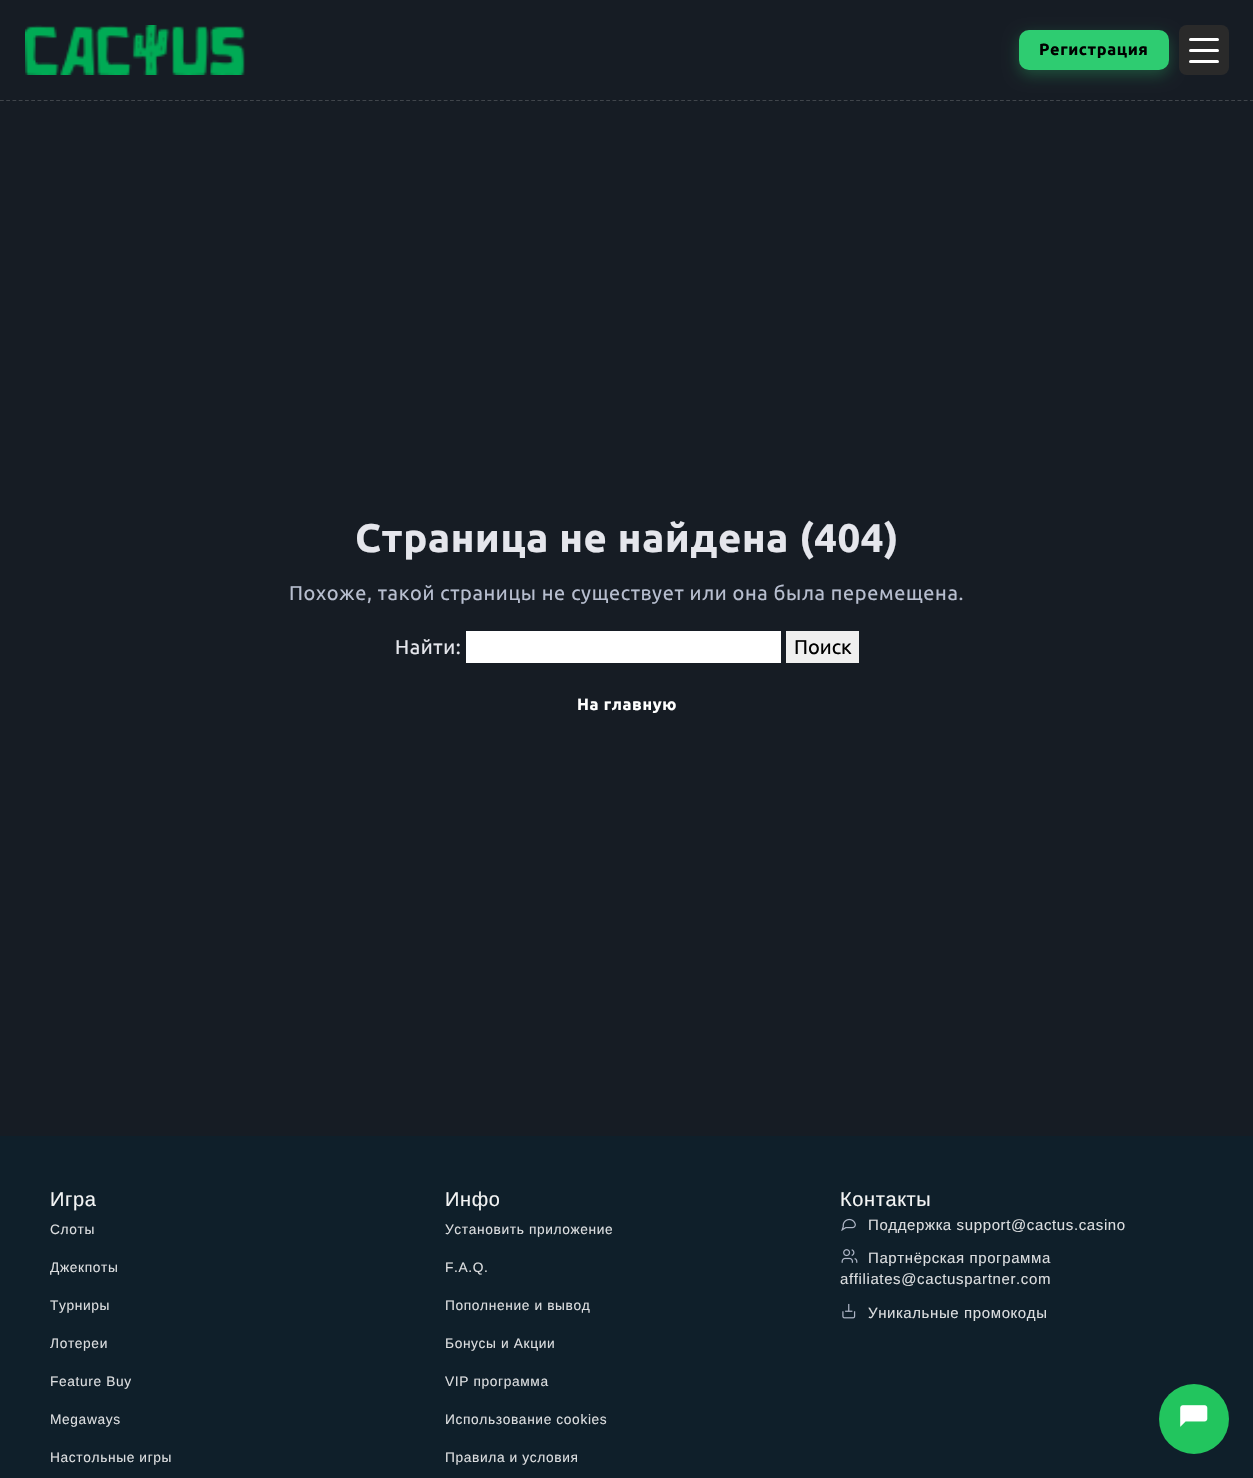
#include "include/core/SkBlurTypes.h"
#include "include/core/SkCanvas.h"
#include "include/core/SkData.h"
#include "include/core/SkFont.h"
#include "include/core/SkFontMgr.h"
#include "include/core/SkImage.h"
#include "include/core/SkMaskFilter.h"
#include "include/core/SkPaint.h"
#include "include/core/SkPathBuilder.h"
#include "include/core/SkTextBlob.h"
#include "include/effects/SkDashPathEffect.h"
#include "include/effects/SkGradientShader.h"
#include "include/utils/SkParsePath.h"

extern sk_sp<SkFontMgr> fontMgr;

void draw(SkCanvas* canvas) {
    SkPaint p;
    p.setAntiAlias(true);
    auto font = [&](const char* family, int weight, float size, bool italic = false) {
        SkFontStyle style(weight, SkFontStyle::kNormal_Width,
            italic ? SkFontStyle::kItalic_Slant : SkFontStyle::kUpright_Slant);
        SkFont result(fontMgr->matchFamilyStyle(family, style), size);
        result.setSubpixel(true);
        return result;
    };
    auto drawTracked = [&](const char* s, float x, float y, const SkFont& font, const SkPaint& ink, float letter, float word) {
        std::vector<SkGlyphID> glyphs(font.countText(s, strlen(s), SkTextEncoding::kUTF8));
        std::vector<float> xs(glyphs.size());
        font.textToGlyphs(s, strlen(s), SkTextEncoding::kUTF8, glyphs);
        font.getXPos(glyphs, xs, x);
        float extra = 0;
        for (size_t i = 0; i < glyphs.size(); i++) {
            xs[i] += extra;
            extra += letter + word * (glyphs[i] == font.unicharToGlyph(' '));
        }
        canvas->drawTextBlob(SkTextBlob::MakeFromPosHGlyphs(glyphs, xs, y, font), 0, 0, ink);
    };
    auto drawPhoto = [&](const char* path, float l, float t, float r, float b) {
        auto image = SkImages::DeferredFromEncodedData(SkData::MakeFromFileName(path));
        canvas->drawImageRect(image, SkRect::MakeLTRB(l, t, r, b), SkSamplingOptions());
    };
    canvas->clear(0xFF161C24);
    p.setStyle(SkPaint::kStroke_Style);
    p.setStrokeWidth(1.2f);
    p.setColor(0xFF40454B);
    p.setPathEffect(SkDashPathEffect::Make({{3.75f, 2.5f}}, 0));
    canvas->drawPath(SkPathBuilder().moveTo(0, 100.5f).lineTo(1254, 100.5f).detach(), p);
    p.setPathEffect(nullptr);
    drawPhoto("media/1.png", 25, 25, 245, 75);
    p.setStyle(SkPaint::kFill_Style);
    p.setColor(0x4D2ECC71);
    p.setMaskFilter(SkMaskFilter::MakeBlur(kNormal_SkBlurStyle, 7.5f));
    canvas->drawRoundRect(SkRect::MakeLTRB(1019, 35, 1169, 75), 10, 10, p);
    p.setMaskFilter(nullptr);
    p.setColor(0xFF2ECC71);
    canvas->drawRoundRect(SkRect::MakeLTRB(1019, 30, 1169, 70), 10, 10, p);
    auto font1 = font("Ubuntu", 700, 16.25f);
    p.setColor(0xFF000000);
    drawTracked("Регистрация", 1039, 55, font1, p, 0.62f, 0);
    p.setColor(0xFF2A2A2A);
    canvas->drawRoundRect(SkRect::MakeLTRB(1179, 25, 1229, 75), 8, 8, p);
    p.setColor(0xFFFFFFFF);
    canvas->drawRoundRect(SkRect::MakeLTRB(1189, 38, 1219, 41), 1.5f, 1.5f, p);
    canvas->drawRoundRect(SkRect::MakeLTRB(1189, 49, 1219, 52), 1.5f, 1.5f, p);
    canvas->drawRoundRect(SkRect::MakeLTRB(1189, 60, 1219, 63), 1.5f, 1.5f, p);
    auto font2 = font("Ubuntu", 700, 40);
    p.setColor(0xFFE5E6EC);
    drawTracked("Страница не найдена (404)", 355, 552, font2, p, 0.62f, 0);
    auto font3 = font("Ubuntu", 400, 20);
    p.setColor(0xFFB7BECF);
    drawTracked("Похоже, такой страницы не существует или она была перемещена.", 289, 600, font3, p, 0.62f, 0);
    p.setColor(0xFFE5E6EC);
    drawTracked("Найти:", 395, 654, font3, p, 0.62f, 0);
    p.setColor(0xFFFFFFFF);
    canvas->drawRect(SkRect::MakeLTRB(466, 631, 781, 663), p);
    p.setColor(0xFFEFEFEF);
    canvas->drawRect(SkRect::MakeLTRB(786, 631, 859, 663), p);
    p.setColor(0xFF000000);
    canvas->drawString("Поиск", 794, 654, font3, p);
    p.setColor(0xFFFFFFFF);
    drawTracked("На главную", 577, 710, font1, p, 0.62f, 0);
    p.setColor(0xFF0F1F2A);
    canvas->drawRect(SkRect::MakeLTRB(0, 1136, 1253, 1478), p);
    auto font4 = font("Liberation Sans", 400, 20);
    p.setColor(0xFFF3F4F4);
    drawTracked("Игра", 50, 1206, font4, p, 0.62f, 0);
    auto font5 = font("Liberation Sans", 400, 13.75f);
    p.setColor(0xFFDBDDDF);
    {
        const struct { const char* s; float x, y; } items[] = {
            {"Слоты", 50, 1234},
            {"Джекпоты", 50, 1272},
            {"Турниры", 50, 1310},
            {"Лотереи", 50, 1348},
            {"Feature Buy", 50, 1386},
            {"Megaways", 50, 1424},
            {"Настольные игры", 50, 1462},
        };
        for (auto [s, x, y] : items) {
            drawTracked(s, x, y, font5, p, 0.62f, 0);
        }
    }
    p.setColor(0xFFF3F4F4);
    drawTracked("Инфо", 445, 1206, font4, p, 0.62f, 0);
    p.setColor(0xFFDBDDDF);
    {
        const struct { const char* s; float x, y; } items[] = {
            {"Установить приложение", 445, 1234},
            {"F.A.Q.", 445, 1272},
            {"Пополнение и вывод", 445, 1310},
            {"Бонусы и Акции", 445, 1348},
            {"VIP программа", 445, 1386},
            {"Использование cookies", 445, 1424},
            {"Правила и условия", 445, 1462},
        };
        for (auto [s, x, y] : items) {
            drawTracked(s, x, y, font5, p, 0.62f, 0);
        }
    }
    p.setColor(0xFFF3F4F4);
    drawTracked("Контакты", 840, 1206, font4, p, 0.62f, 0);
    drawPhoto("media/2.png", 841, 1218, 856, 1231);
    auto font6 = font("Liberation Sans", 400, 15);
    p.setColor(0xFFDBDDDF);
    drawTracked("Поддержка support@cactus.casino", 868, 1230, font6, p, 0.62f, 0);
    drawPhoto("media/3.png", 841, 1249, 858, 1263);
    drawTracked("Партнёрская программа", 868, 1263, font6, p, 0.62f, 0);
    drawTracked("affiliates@cactuspartner.com", 840, 1284, font6, p, 0.62f, 0);
    drawPhoto("media/4.png", 842, 1303, 856, 1319);
    drawTracked("Уникальные промокоды", 868, 1318, font6, p, 0.62f, 0);
    p.setColor(0xFF22C55E);
    canvas->drawCircle(1194, 1419, 35, p);
    drawPhoto("media/5.png", 1180, 1405, 1208, 1427);
}
